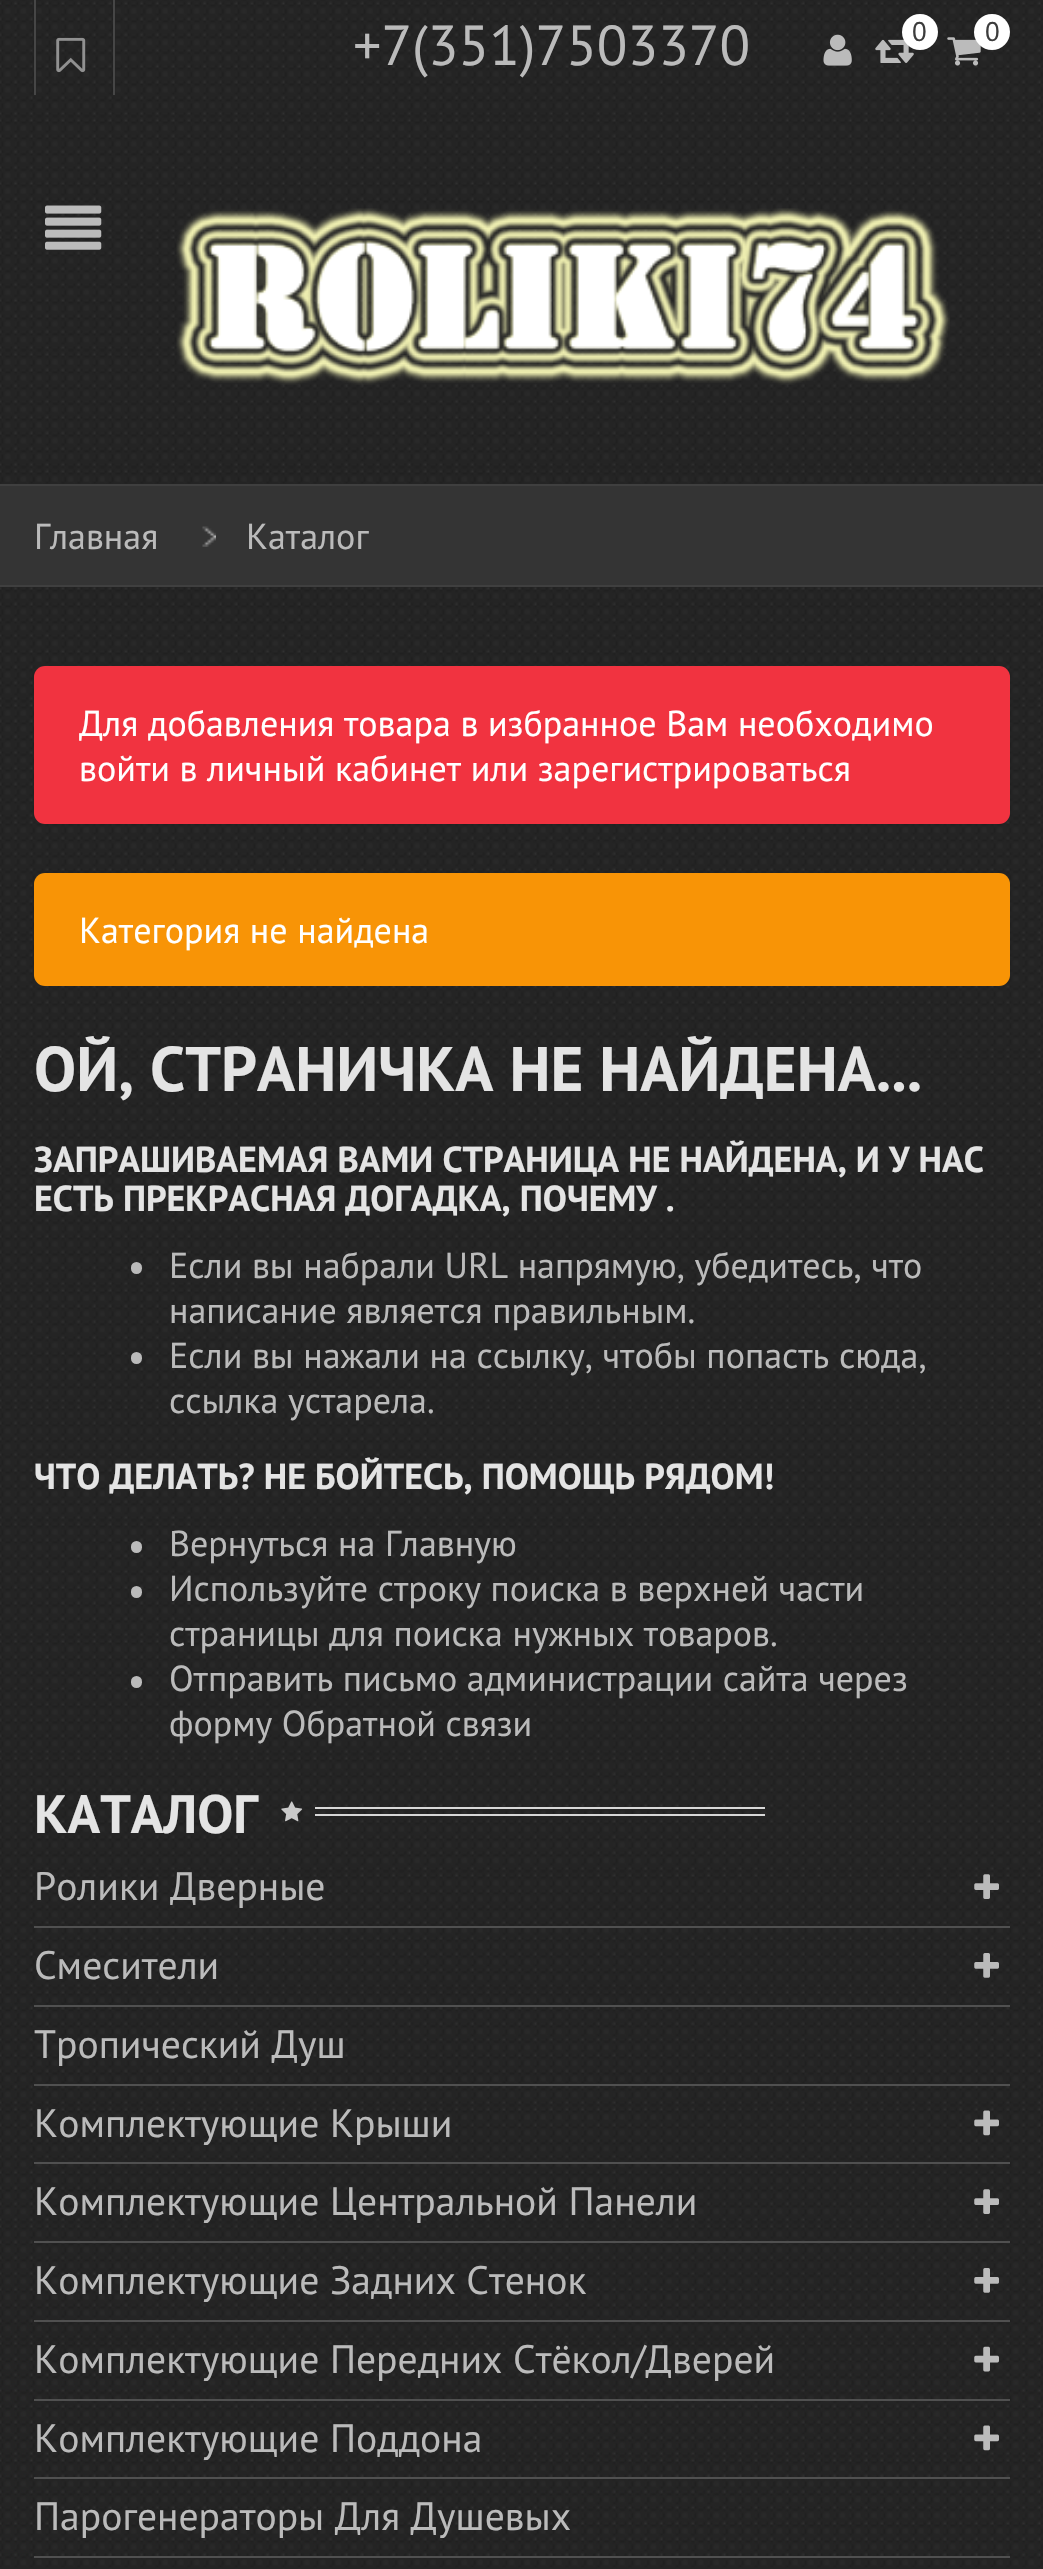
#include "include/core/SkBlurTypes.h"
#include "include/core/SkCanvas.h"
#include "include/core/SkData.h"
#include "include/core/SkFont.h"
#include "include/core/SkFontMgr.h"
#include "include/core/SkImage.h"
#include "include/core/SkMaskFilter.h"
#include "include/core/SkPaint.h"
#include "include/core/SkPathBuilder.h"
#include "include/core/SkTextBlob.h"
#include "include/effects/SkDashPathEffect.h"
#include "include/effects/SkGradientShader.h"
#include "include/utils/SkParsePath.h"

extern sk_sp<SkFontMgr> fontMgr;

void draw(SkCanvas* canvas) {
    SkPaint p;
    p.setAntiAlias(true);
    auto font = [&](const char* family, int weight, float size, bool italic = false) {
        SkFontStyle style(weight, SkFontStyle::kNormal_Width,
            italic ? SkFontStyle::kItalic_Slant : SkFontStyle::kUpright_Slant);
        SkFont result(fontMgr->matchFamilyStyle(family, style), size);
        result.setSubpixel(true);
        return result;
    };
    auto drawPhoto = [&](const char* path, float l, float t, float r, float b) {
        auto image = SkImages::DeferredFromEncodedData(SkData::MakeFromFileName(path));
        canvas->drawImageRect(image, SkRect::MakeLTRB(l, t, r, b), SkSamplingOptions());
    };
    canvas->clear(0xFFFFFFFF);
    drawPhoto("media/1.png", 0, 0, 1043, 2569);
    p.setColor(0xFF464646);
    canvas->drawRect(SkRect::MakeLTRB(113, 0, 115, 95), p);
    canvas->drawRect(SkRect::MakeLTRB(34, 0, 36, 95), p);
    drawPhoto("media/2.png", 56, 37, 86, 73);
    auto font1 = font("PT Sans", 400, 56.25f);
    p.setColor(0xFFBBBBBB);
    canvas->drawString("+7(351)7503370", 353, 65, font1, p);
    drawPhoto("media/3.png", 875, 39, 914, 63);
    p.setColor(0xFFFFFFFF);
    canvas->drawCircle(920, 32, 18, p);
    auto font2 = font("PT Sans", 400, 27);
    p.setColor(0xFF3C3C3C);
    canvas->drawString("0", 912, 41, font2, p);
    drawPhoto("media/4.png", 947, 37, 981, 66);
    p.setColor(0xFFFFFFFF);
    canvas->drawCircle(992, 32, 18, p);
    p.setColor(0xFF3C3C3C);
    canvas->drawString("0", 985, 41, font2, p);
    drawPhoto("media/5.png", 823, 34, 852, 66);
    drawPhoto("media/6.png", 45, 205, 102, 250);
    drawPhoto("media/7.png", 176, 208, 950, 385);
    {
        const struct { float l, t, r, b; SkColor color; } items[] = {
            {0, 486, 1043, 585, 0xFF343434},
            {0, 484, 1043, 486, 0xFF3F3F3F},
            {0, 585, 1043, 587, 0xFF3F3F3F},
        };
        for (auto [l, t, r, b, color] : items) {
            p.setColor(color);
            canvas->drawRect(SkRect::MakeLTRB(l, t, r, b), p);
        }
    }
    auto font3 = font("PT Sans", 400, 36);
    p.setColor(0xFFBBBBBB);
    canvas->drawString("Главная", 34, 549, font3, p);
    drawPhoto("media/8.png", 202, 526, 216, 547);
    canvas->drawString("Каталог", 246, 549, font3, p);
    p.setColor(0xFFF13340);
    canvas->drawRoundRect(SkRect::MakeLTRB(34, 666, 1010, 824), 11, 11, p);
    p.setColor(0xFFFFFFFF);
    canvas->drawString("Для добавления товара в избранное Вам необходимо", 79, 736, font3, p);
    canvas->drawString("войти в личный кабинет или зарегистрироваться", 79, 781, font3, p);
    p.setColor(0xFFF89406);
    canvas->drawRoundRect(SkRect::MakeLTRB(34, 873, 1010, 986), 11, 11, p);
    p.setColor(0xFFFFFFFF);
    canvas->drawString("Категория не найдена", 79, 943, font3, p);
    auto font4 = font("PT Sans", 700, 63);
    p.setColor(0xFFE4E4E4);
    canvas->drawString("ОЙ, СТРАНИЧКА НЕ НАЙДЕНА...", 34, 1091, font4, p);
    auto font5 = font("PT Sans", 700, 36);
    canvas->drawString("ЗАПРАШИВАЕМАЯ ВАМИ СТРАНИЦА НЕ НАЙДЕНА, И У НАС", 34, 1172, font5, p);
    canvas->drawString("ЕСТЬ ПРЕКРАСНАЯ ДОГАДКА, ПОЧЕМУ .", 34, 1211, font5, p);
    p.setColor(0xFFBBBBBB);
    canvas->drawRoundRect(SkRect::MakeLTRB(131, 1262, 142, 1274), 5.5f, 5.5f, p);
    canvas->drawString("Если вы набрали URL напрямую, убедитесь, что", 169, 1278, font3, p);
    canvas->drawString("написание является правильным.", 169, 1323, font3, p);
    canvas->drawRoundRect(SkRect::MakeLTRB(131, 1352, 142, 1364), 5.5f, 5.5f, p);
    canvas->drawString("Если вы нажали на ссылку, чтобы попасть сюда,", 169, 1368, font3, p);
    canvas->drawString("ссылка устарела.", 169, 1413, font3, p);
    p.setColor(0xFFE4E4E4);
    canvas->drawString("ЧТО ДЕЛАТЬ? НЕ БОЙТЕСЬ, ПОМОЩЬ РЯДОМ!", 34, 1489, font5, p);
    p.setColor(0xFFBBBBBB);
    canvas->drawRoundRect(SkRect::MakeLTRB(131, 1541, 142, 1553), 5.5f, 5.5f, p);
    canvas->drawString("Вернуться на Главную", 169, 1556, font3, p);
    canvas->drawRoundRect(SkRect::MakeLTRB(131, 1586, 142, 1598), 5.5f, 5.5f, p);
    canvas->drawString("Используйте строку поиска в верхней части", 169, 1601, font3, p);
    canvas->drawString("страницы для поиска нужных товаров.", 169, 1646, font3, p);
    canvas->drawRoundRect(SkRect::MakeLTRB(131, 1676, 142, 1688), 5.5f, 5.5f, p);
    canvas->drawString("Отправить письмо админиcтрации сайта через", 169, 1691, font3, p);
    canvas->drawString("форму Обратной связи", 169, 1736, font3, p);
    auto font6 = font("PT Sans", 700, 54);
    p.setColor(0xFFE4E4E4);
    canvas->drawString("КАТАЛОГ", 34, 1833, font6, p);
    drawPhoto("media/9.png", 281, 1801, 303, 1822);
    {
        const struct { float l, t, r, b; SkColor color; } items[] = {
            {315, 1807, 765, 1809, 0xFFD7D7D7},
            {315, 1814, 765, 1816, 0xFFD7D7D7},
            {34, 1926, 1010, 1928, 0xFF505050},
        };
        for (auto [l, t, r, b, color] : items) {
            p.setColor(color);
            canvas->drawRect(SkRect::MakeLTRB(l, t, r, b), p);
        }
    }
    auto font7 = font("PT Sans", 400, 39.6f);
    p.setColor(0xFFBBBBBB);
    canvas->drawString("Ролики Дверные", 34, 1900, font7, p);
    drawPhoto("media/10.png", 974, 1874, 999, 1899);
    p.setColor(0xFF505050);
    canvas->drawRect(SkRect::MakeLTRB(34, 2005, 1010, 2007), p);
    p.setColor(0xFFBBBBBB);
    canvas->drawString("Смесители", 34, 1979, font7, p);
    drawPhoto("media/11.png", 974, 1953, 999, 1978);
    p.setColor(0xFF505050);
    canvas->drawRect(SkRect::MakeLTRB(34, 2084, 1010, 2086), p);
    p.setColor(0xFFBBBBBB);
    canvas->drawString("Тропический Душ", 34, 2058, font7, p);
    p.setColor(0xFF505050);
    canvas->drawRect(SkRect::MakeLTRB(34, 2162, 1010, 2164), p);
    p.setColor(0xFFBBBBBB);
    canvas->drawString("Комплектующие Крыши", 34, 2137, font7, p);
    drawPhoto("media/12.png", 974, 2110, 999, 2136);
    p.setColor(0xFF505050);
    canvas->drawRect(SkRect::MakeLTRB(34, 2241, 1010, 2243), p);
    p.setColor(0xFFBBBBBB);
    canvas->drawString("Комплектующие Центральной Панели", 34, 2215, font7, p);
    drawPhoto("media/13.png", 974, 2189, 999, 2214);
    p.setColor(0xFF505050);
    canvas->drawRect(SkRect::MakeLTRB(34, 2320, 1010, 2322), p);
    p.setColor(0xFFBBBBBB);
    canvas->drawString("Комплектующие Задних Стенок", 34, 2294, font7, p);
    drawPhoto("media/14.png", 974, 2268, 999, 2293);
    p.setColor(0xFF505050);
    canvas->drawRect(SkRect::MakeLTRB(34, 2399, 1010, 2401), p);
    p.setColor(0xFFBBBBBB);
    canvas->drawString("Комплектующие Передних Стёкол/Дверей", 34, 2373, font7, p);
    drawPhoto("media/15.png", 974, 2346, 999, 2372);
    p.setColor(0xFF505050);
    canvas->drawRect(SkRect::MakeLTRB(34, 2477, 1010, 2479), p);
    p.setColor(0xFFBBBBBB);
    canvas->drawString("Комплектующие Поддона", 34, 2452, font7, p);
    drawPhoto("media/16.png", 974, 2425, 999, 2451);
    p.setColor(0xFF505050);
    canvas->drawRect(SkRect::MakeLTRB(34, 2556, 1010, 2558), p);
    p.setColor(0xFFBBBBBB);
    canvas->drawString("Парогенераторы Для Душевых", 34, 2530, font7, p);
}
